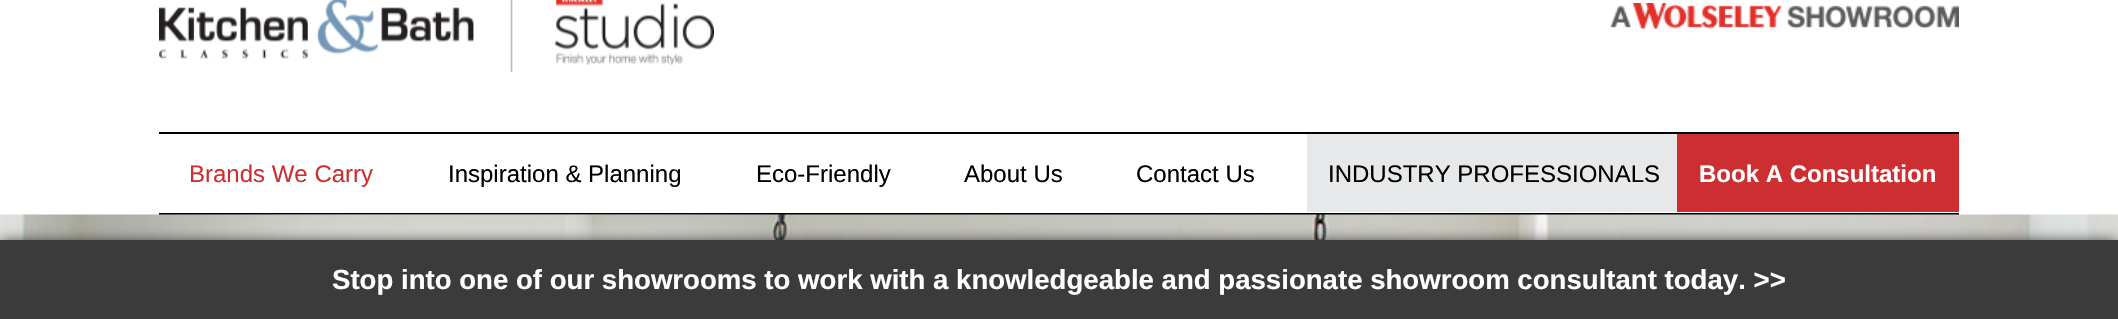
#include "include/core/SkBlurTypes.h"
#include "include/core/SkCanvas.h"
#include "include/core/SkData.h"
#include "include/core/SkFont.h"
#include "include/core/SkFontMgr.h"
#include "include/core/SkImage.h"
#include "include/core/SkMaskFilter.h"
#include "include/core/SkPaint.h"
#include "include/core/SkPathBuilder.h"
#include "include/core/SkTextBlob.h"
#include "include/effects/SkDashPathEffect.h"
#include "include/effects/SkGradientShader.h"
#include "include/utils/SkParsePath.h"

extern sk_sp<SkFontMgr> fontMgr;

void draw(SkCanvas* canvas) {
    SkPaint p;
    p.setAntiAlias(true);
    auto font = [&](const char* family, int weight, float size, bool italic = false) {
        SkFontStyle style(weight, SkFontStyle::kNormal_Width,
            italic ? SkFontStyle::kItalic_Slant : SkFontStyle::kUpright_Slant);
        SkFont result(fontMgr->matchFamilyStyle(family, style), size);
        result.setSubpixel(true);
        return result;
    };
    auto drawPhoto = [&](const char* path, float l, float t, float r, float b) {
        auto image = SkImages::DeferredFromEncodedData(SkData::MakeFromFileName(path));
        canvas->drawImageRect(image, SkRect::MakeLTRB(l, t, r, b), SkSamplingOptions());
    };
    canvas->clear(0xFFFFFFFF);
    drawPhoto("media/1.png", 159, 0, 714, 72);
    drawPhoto("media/2.png", 1610, 3, 1959, 29);
    p.setColor(0xFF000000);
    canvas->drawRect(SkRect::MakeLTRB(159, 132, 1959, 134), p);
    canvas->drawRect(SkRect::MakeLTRB(159, 213, 1959, 215), p);
    auto font1 = font("Liberation Sans", 400, 24);
    p.setColor(0xFFCD2E31);
    canvas->drawString("Brands We Carry", 189, 182, font1, p);
    p.setColor(0xFF000000);
    canvas->drawString("Inspiration & Planning", 448, 182, font1, p);
    p.setColor(0x66FFFFFF);
    canvas->drawPath(SkPathBuilder().moveTo(667.5f, 163.5f).lineTo(682.5f, 163.5f).lineTo(675, 171).close().detach(), p);
    p.setColor(0xFF000000);
    {
        const struct { const char* s; float x, y; } items[] = {
            {"Eco-Friendly", 756, 182},
            {"About Us", 964, 182},
            {"Contact Us", 1136, 182},
        };
        for (auto [s, x, y] : items) {
            canvas->drawString(s, x, y, font1, p);
        }
    }
    p.setColor(0x66FFFFFF);
    canvas->drawPath(SkPathBuilder().moveTo(1242, 163.5f).lineTo(1257, 163.5f).lineTo(1249.5f, 171).close().detach(), p);
    p.setColor(0xFFE7E8E9);
    canvas->drawRect(SkRect::MakeLTRB(1307, 134, 1677, 212), p);
    p.setColor(0xFF000000);
    canvas->drawString("INDUSTRY PROFESSIONALS", 1328, 182, font1, p);
    p.setColor(0xFFCD2E31);
    canvas->drawRect(SkRect::MakeLTRB(1677, 134, 1959, 212), p);
    auto font2 = font("Liberation Sans", 700, 24);
    p.setColor(0xFFFFFFFF);
    canvas->drawString("Book A Consultation", 1699, 182, font2, p);
    drawPhoto("media/3.png", 0, 214, 2118, 240);
    drawPhoto("media/4.png", 153, 214, 806, 240);
    p.setColor(0xFF262626);
    p.setMaskFilter(SkMaskFilter::MakeBlur(kNormal_SkBlurStyle, 7));
    canvas->drawRect(SkRect::MakeLTRB(0, 242, 2118, 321), p);
    p.setMaskFilter(nullptr);
    p.setColor(0xFF3B3B3B);
    canvas->drawRect(SkRect::MakeLTRB(0, 240, 2118, 319), p);
    auto font3 = font("Liberation Sans", 700, 27.6f);
    p.setColor(0xFFFFFFFF);
    canvas->drawString("Stop into one of our showrooms to work with a knowledgeable and passionate showroom consultant today. >>", 332, 289, font3, p);
}
